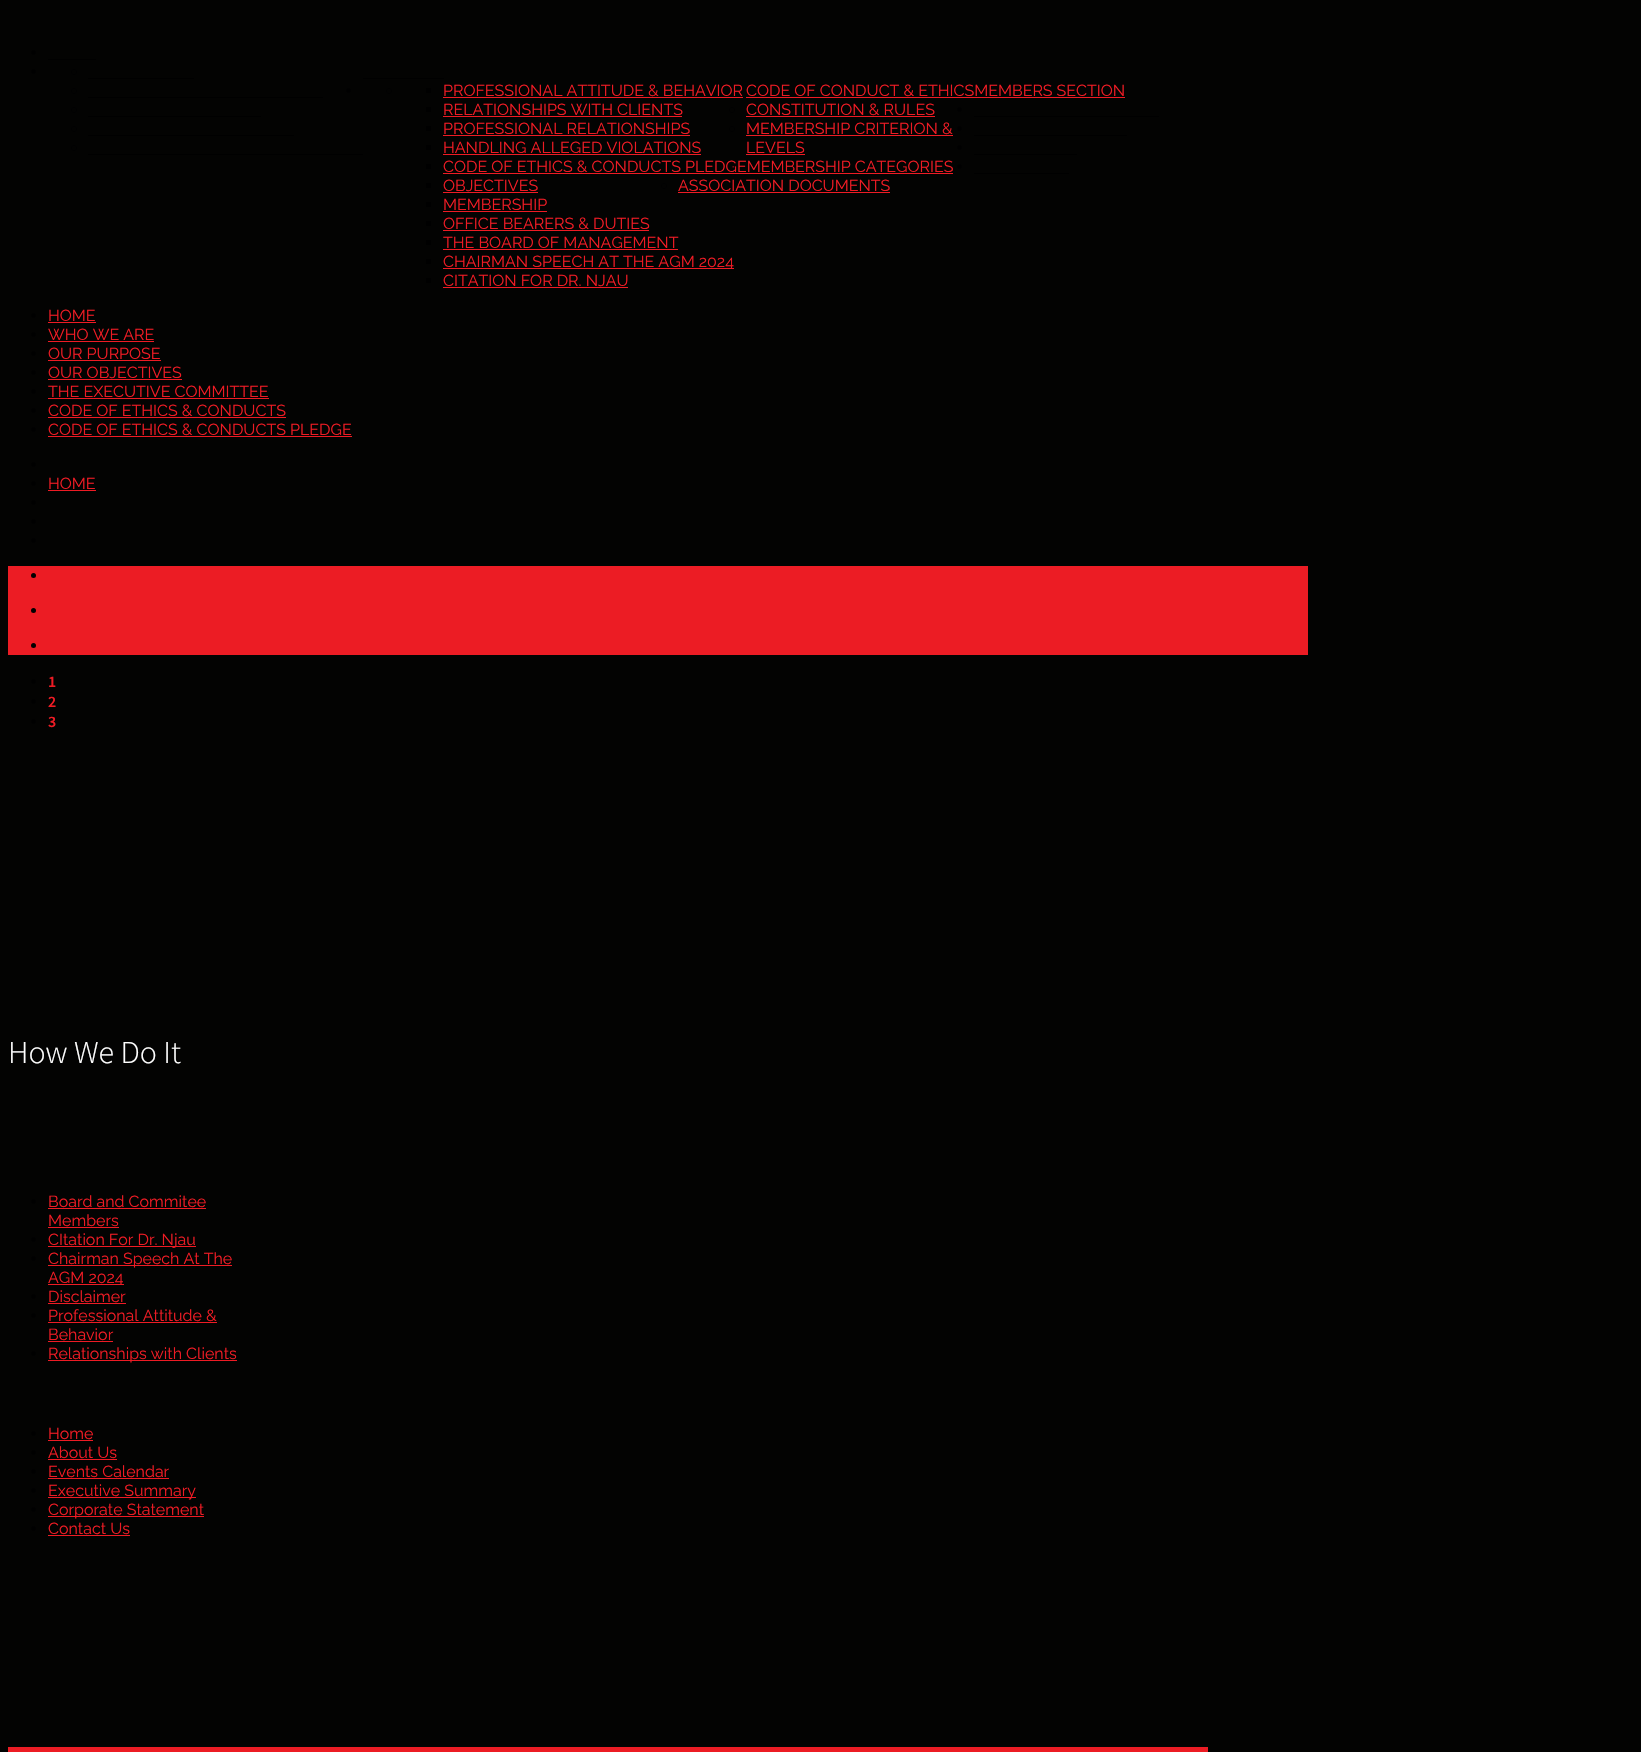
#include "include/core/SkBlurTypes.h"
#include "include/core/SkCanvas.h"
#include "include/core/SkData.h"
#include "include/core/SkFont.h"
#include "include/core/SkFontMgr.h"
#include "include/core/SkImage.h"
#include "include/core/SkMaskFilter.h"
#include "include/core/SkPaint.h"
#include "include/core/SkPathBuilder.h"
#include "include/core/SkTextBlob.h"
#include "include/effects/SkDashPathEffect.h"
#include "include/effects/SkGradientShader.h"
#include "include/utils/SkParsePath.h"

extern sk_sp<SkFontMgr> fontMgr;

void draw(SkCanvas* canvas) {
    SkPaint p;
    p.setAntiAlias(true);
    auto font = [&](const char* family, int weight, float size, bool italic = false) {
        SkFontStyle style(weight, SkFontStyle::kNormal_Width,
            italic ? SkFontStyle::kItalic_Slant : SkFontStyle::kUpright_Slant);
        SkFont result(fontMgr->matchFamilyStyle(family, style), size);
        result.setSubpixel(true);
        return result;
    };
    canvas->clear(0xFF030302);
    p.setColor(0xFF000000);
    canvas->drawCircle(33.5f, 52.5f, 2.5f, p);
    canvas->drawRect(SkRect::MakeLTRB(48, 59, 96, 60), p);
    canvas->drawCircle(33.5f, 71.5f, 2.5f, p);
    p.setStyle(SkPaint::kStroke_Style);
    p.setStrokeWidth(1);
    canvas->drawCircle(74, 72, 2.5f, p);
    p.setStyle(SkPaint::kFill_Style);
    canvas->drawRect(SkRect::MakeLTRB(88, 78, 194, 79), p);
    p.setStyle(SkPaint::kStroke_Style);
    canvas->drawCircle(74, 91, 2.5f, p);
    p.setStyle(SkPaint::kFill_Style);
    canvas->drawRect(SkRect::MakeLTRB(88, 97, 323, 98), p);
    p.setStyle(SkPaint::kStroke_Style);
    canvas->drawCircle(74, 110, 2.5f, p);
    p.setStyle(SkPaint::kFill_Style);
    canvas->drawRect(SkRect::MakeLTRB(88, 116, 261, 117), p);
    p.setStyle(SkPaint::kStroke_Style);
    canvas->drawCircle(74, 129, 2.5f, p);
    p.setStyle(SkPaint::kFill_Style);
    canvas->drawRect(SkRect::MakeLTRB(88, 135, 294, 136), p);
    p.setStyle(SkPaint::kStroke_Style);
    canvas->drawCircle(74, 148, 2.5f, p);
    p.setStyle(SkPaint::kFill_Style);
    canvas->drawRect(SkRect::MakeLTRB(88, 154, 363, 155), p);
    canvas->drawRect(SkRect::MakeLTRB(363, 78, 444, 79), p);
    canvas->drawCircle(348.5f, 90.5f, 2.5f, p);
    canvas->drawRect(SkRect::MakeLTRB(426, 88, 431, 93), p);
    auto font1 = font("Raleway", 400, 16);
    p.setColor(0xFFEE1B24);
    canvas->drawString("PROFESSIONAL ATTITUDE & BEHAVIOR", 443, 96, font1, p);
    canvas->drawRect(SkRect::MakeLTRB(443, 97, 743, 98), p);
    p.setColor(0xFF000000);
    canvas->drawRect(SkRect::MakeLTRB(426, 107, 431, 112), p);
    p.setColor(0xFFEE1B24);
    canvas->drawString("RELATIONSHIPS WITH CLIENTS", 443, 115, font1, p);
    canvas->drawRect(SkRect::MakeLTRB(443, 116, 682, 117), p);
    p.setColor(0xFF000000);
    canvas->drawRect(SkRect::MakeLTRB(426, 126, 431, 131), p);
    p.setColor(0xFFEE1B24);
    canvas->drawString("PROFESSIONAL RELATIONSHIPS", 443, 134, font1, p);
    canvas->drawRect(SkRect::MakeLTRB(443, 135, 690, 136), p);
    p.setColor(0xFF000000);
    canvas->drawRect(SkRect::MakeLTRB(426, 145, 431, 150), p);
    p.setColor(0xFFEE1B24);
    canvas->drawString("HANDLING ALLEGED VIOLATIONS", 443, 153, font1, p);
    canvas->drawRect(SkRect::MakeLTRB(443, 154, 701, 155), p);
    p.setColor(0xFF000000);
    canvas->drawRect(SkRect::MakeLTRB(426, 164, 431, 169), p);
    p.setColor(0xFFEE1B24);
    canvas->drawString("CODE OF ETHICS & CONDUCTS PLEDGEMEMBERSHIP CATEGORIES", 443, 172, font1, p);
    canvas->drawRect(SkRect::MakeLTRB(443, 173, 953, 174), p);
    p.setStyle(SkPaint::kStroke_Style);
    p.setColor(0xFF000000);
    canvas->drawCircle(389, 91, 2.5f, p);
    p.setStyle(SkPaint::kFill_Style);
    p.setColor(0xFFEE1B24);
    canvas->drawString("CODE OF CONDUCT & ETHICSMEMBERS SECTION", 746, 96, font1, p);
    canvas->drawRect(SkRect::MakeLTRB(746, 97, 1125, 98), p);
    p.setStyle(SkPaint::kStroke_Style);
    p.setColor(0xFF000000);
    canvas->drawCircle(732, 110, 2.5f, p);
    p.setStyle(SkPaint::kFill_Style);
    p.setColor(0xFFEE1B24);
    canvas->drawString("CONSTITUTION & RULES", 746, 115, font1, p);
    canvas->drawRect(SkRect::MakeLTRB(746, 116, 935, 117), p);
    p.setColor(0xFF000000);
    canvas->drawRect(SkRect::MakeLTRB(426, 183, 431, 188), p);
    p.setColor(0xFFEE1B24);
    canvas->drawString("OBJECTIVES", 443, 191, font1, p);
    canvas->drawRect(SkRect::MakeLTRB(443, 192, 538, 193), p);
    p.setColor(0xFF000000);
    canvas->drawRect(SkRect::MakeLTRB(426, 202, 431, 207), p);
    p.setColor(0xFFEE1B24);
    canvas->drawString("MEMBERSHIP", 443, 210, font1, p);
    canvas->drawRect(SkRect::MakeLTRB(443, 211, 547, 212), p);
    p.setColor(0xFF000000);
    canvas->drawRect(SkRect::MakeLTRB(426, 221, 431, 226), p);
    p.setColor(0xFFEE1B24);
    canvas->drawString("OFFICE BEARERS & DUTIES", 443, 229, font1, p);
    canvas->drawRect(SkRect::MakeLTRB(443, 230, 649, 231), p);
    p.setColor(0xFF000000);
    canvas->drawRect(SkRect::MakeLTRB(426, 240, 431, 245), p);
    p.setColor(0xFFEE1B24);
    canvas->drawString("THE BOARD OF MANAGEMENT", 443, 248, font1, p);
    canvas->drawRect(SkRect::MakeLTRB(443, 249, 678, 250), p);
    p.setStyle(SkPaint::kStroke_Style);
    p.setColor(0xFF000000);
    canvas->drawCircle(732, 129, 2.5f, p);
    p.setStyle(SkPaint::kFill_Style);
    p.setColor(0xFFEE1B24);
    canvas->drawString("MEMBERSHIP CRITERION &", 746, 134, font1, p);
    canvas->drawRect(SkRect::MakeLTRB(746, 135, 953, 136), p);
    canvas->drawString("LEVELS", 746, 153, font1, p);
    canvas->drawRect(SkRect::MakeLTRB(746, 154, 805, 155), p);
    p.setStyle(SkPaint::kStroke_Style);
    p.setColor(0xFF000000);
    canvas->drawCircle(732, 167, 2.5f, p);
    canvas->drawCircle(664, 186, 2.5f, p);
    p.setStyle(SkPaint::kFill_Style);
    p.setColor(0xFFEE1B24);
    canvas->drawString("ASSOCIATION DOCUMENTS", 678, 191, font1, p);
    {
        const struct { float l, t, r, b; SkColor color; } items[] = {
            {678, 192, 890, 193, 0xFFEE1B24},
            {426, 259, 431, 264, 0xFF000000},
            {443, 268, 734, 269, 0xFFEE1B24},
        };
        for (auto [l, t, r, b, color] : items) {
            p.setColor(color);
            canvas->drawRect(SkRect::MakeLTRB(l, t, r, b), p);
        }
    }
    canvas->drawString("CHAIRMAN SPEECH AT THE AGM 2024", 443, 267, font1, p);
    p.setColor(0xFF000000);
    canvas->drawRect(SkRect::MakeLTRB(426, 278, 431, 283), p);
    p.setColor(0xFFEE1B24);
    canvas->drawString("CITATION FOR DR. NJAU", 443, 286, font1, p);
    canvas->drawRect(SkRect::MakeLTRB(443, 287, 628, 288), p);
    p.setColor(0xFF000000);
    canvas->drawCircle(959.5f, 109.5f, 2.5f, p);
    canvas->drawRect(SkRect::MakeLTRB(974, 116, 1159, 117), p);
    canvas->drawCircle(959.5f, 128.5f, 2.5f, p);
    canvas->drawRect(SkRect::MakeLTRB(974, 135, 1127, 136), p);
    canvas->drawCircle(959.5f, 147.5f, 2.5f, p);
    canvas->drawRect(SkRect::MakeLTRB(974, 154, 1077, 155), p);
    canvas->drawCircle(959.5f, 166.5f, 2.5f, p);
    canvas->drawRect(SkRect::MakeLTRB(974, 173, 1069, 174), p);
    canvas->drawCircle(33.5f, 315.5f, 2.5f, p);
    p.setColor(0xFFEE1B24);
    canvas->drawString("HOME", 48, 321, font1, p);
    canvas->drawRect(SkRect::MakeLTRB(48, 322, 96, 323), p);
    p.setColor(0xFF000000);
    canvas->drawCircle(33.5f, 334.5f, 2.5f, p);
    p.setColor(0xFFEE1B24);
    canvas->drawString("WHO WE ARE", 48, 340, font1, p);
    canvas->drawRect(SkRect::MakeLTRB(48, 341, 154, 342), p);
    p.setColor(0xFF000000);
    canvas->drawCircle(33.5f, 353.5f, 2.5f, p);
    p.setColor(0xFFEE1B24);
    canvas->drawString("OUR PURPOSE", 48, 359, font1, p);
    canvas->drawRect(SkRect::MakeLTRB(48, 360, 161, 361), p);
    p.setColor(0xFF000000);
    canvas->drawCircle(33.5f, 372.5f, 2.5f, p);
    p.setColor(0xFFEE1B24);
    canvas->drawString("OUR OBJECTIVES", 48, 378, font1, p);
    p.setColor(0xFFEC1C24);
    canvas->drawRect(SkRect::MakeLTRB(48, 379, 182, 380), p);
    p.setColor(0xFF000000);
    canvas->drawCircle(33.5f, 391.5f, 2.5f, p);
    p.setColor(0xFFEE1B24);
    canvas->drawString("THE EXECUTIVE COMMITTEE", 48, 397, font1, p);
    canvas->drawRect(SkRect::MakeLTRB(48, 398, 269, 399), p);
    p.setColor(0xFF000000);
    canvas->drawCircle(33.5f, 410.5f, 2.5f, p);
    p.setColor(0xFFEE1B24);
    canvas->drawString("CODE OF ETHICS & CONDUCTS", 48, 416, font1, p);
    canvas->drawRect(SkRect::MakeLTRB(48, 417, 286, 418), p);
    p.setColor(0xFF000000);
    canvas->drawCircle(33.5f, 429.5f, 2.5f, p);
    p.setColor(0xFFEE1B24);
    canvas->drawString("CODE OF ETHICS & CONDUCTS PLEDGE", 48, 435, font1, p);
    canvas->drawRect(SkRect::MakeLTRB(48, 436, 352, 437), p);
    p.setColor(0xFF000000);
    canvas->drawCircle(33.5f, 464.5f, 2.5f, p);
    canvas->drawCircle(33.5f, 483.5f, 2.5f, p);
    p.setColor(0xFFEE1B24);
    canvas->drawString("HOME", 48, 489, font1, p);
    canvas->drawRect(SkRect::MakeLTRB(48, 490, 96, 491), p);
    p.setColor(0xFF000000);
    canvas->drawCircle(33.5f, 502.5f, 2.5f, p);
    canvas->drawCircle(33.5f, 521.5f, 2.5f, p);
    canvas->drawCircle(33.5f, 540.5f, 2.5f, p);
    p.setColor(0xFFEC1C24);
    canvas->drawRect(SkRect::MakeLTRB(8, 566, 1308, 655), p);
    p.setColor(0xFF000000);
    canvas->drawCircle(33.5f, 575.5f, 2.5f, p);
    canvas->drawCircle(33.5f, 610.5f, 2.5f, p);
    canvas->drawCircle(33.5f, 645.5f, 2.5f, p);
    canvas->drawCircle(33.5f, 681.5f, 2.5f, p);
    auto font2 = font("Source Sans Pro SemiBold", 600, 16);
    p.setColor(0xFFEE1B24);
    canvas->drawString("1", 48, 687, font2, p);
    p.setColor(0xFF000000);
    canvas->drawCircle(33.5f, 701.5f, 2.5f, p);
    p.setColor(0xFFEE1B24);
    canvas->drawString("2", 48, 707, font2, p);
    p.setColor(0xFF000000);
    canvas->drawCircle(33.5f, 721.5f, 2.5f, p);
    p.setColor(0xFFEE1B24);
    canvas->drawString("3", 48, 727, font2, p);
    auto font3 = font("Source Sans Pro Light", 300, 32);
    p.setColor(0xFFFFFFFF);
    canvas->drawString("How We Do It", 8, 1063, font3, p);
    p.setColor(0xFF000000);
    canvas->drawCircle(33.5f, 1201.5f, 2.5f, p);
    p.setColor(0xFFEE1B24);
    canvas->drawString("Board and Commitee", 48, 1207, font1, p);
    canvas->drawRect(SkRect::MakeLTRB(48, 1208, 206, 1209), p);
    canvas->drawString("Members", 48, 1226, font1, p);
    canvas->drawRect(SkRect::MakeLTRB(48, 1227, 119, 1228), p);
    p.setColor(0xFF000000);
    canvas->drawCircle(33.5f, 1239.5f, 2.5f, p);
    p.setColor(0xFFEE1B24);
    canvas->drawRect(SkRect::MakeLTRB(48, 1246, 196, 1247), p);
    canvas->drawString("CItation For Dr. Njau", 48, 1245, font1, p);
    p.setColor(0xFF000000);
    canvas->drawCircle(33.5f, 1258.5f, 2.5f, p);
    p.setColor(0xFFEE1B24);
    canvas->drawRect(SkRect::MakeLTRB(48, 1265, 232, 1266), p);
    canvas->drawString("Chairman Speech At The", 48, 1264, font1, p);
    canvas->drawRect(SkRect::MakeLTRB(48, 1284, 124, 1285), p);
    canvas->drawString("AGM 2024", 48, 1283, font1, p);
    p.setColor(0xFF000000);
    canvas->drawCircle(33.5f, 1296.5f, 2.5f, p);
    p.setColor(0xFFEE1B24);
    canvas->drawString("Disclaimer", 48, 1302, font1, p);
    canvas->drawRect(SkRect::MakeLTRB(48, 1303, 126, 1304), p);
    p.setColor(0xFF000000);
    canvas->drawCircle(33.5f, 1315.5f, 2.5f, p);
    p.setColor(0xFFEE1B24);
    canvas->drawString("Professional Attitude &", 48, 1321, font1, p);
    canvas->drawRect(SkRect::MakeLTRB(48, 1322, 217, 1323), p);
    canvas->drawString("Behavior", 48, 1340, font1, p);
    canvas->drawRect(SkRect::MakeLTRB(48, 1341, 113, 1342), p);
    p.setColor(0xFF000000);
    canvas->drawCircle(33.5f, 1353.5f, 2.5f, p);
    p.setColor(0xFFEE1B24);
    canvas->drawRect(SkRect::MakeLTRB(48, 1360, 237, 1361), p);
    canvas->drawString("Relationships with Clients", 48, 1359, font1, p);
    p.setColor(0xFF000000);
    canvas->drawCircle(33.5f, 1433.5f, 2.5f, p);
    p.setColor(0xFFEE1B24);
    canvas->drawString("Home", 48, 1439, font1, p);
    canvas->drawRect(SkRect::MakeLTRB(48, 1440, 93, 1441), p);
    p.setColor(0xFF000000);
    canvas->drawCircle(33.5f, 1452.5f, 2.5f, p);
    p.setColor(0xFFEE1B24);
    canvas->drawString("About Us", 48, 1458, font1, p);
    canvas->drawRect(SkRect::MakeLTRB(48, 1459, 117, 1460), p);
    p.setColor(0xFF000000);
    canvas->drawCircle(33.5f, 1471.5f, 2.5f, p);
    p.setColor(0xFFEE1B24);
    canvas->drawString("Events Calendar", 48, 1477, font1, p);
    canvas->drawRect(SkRect::MakeLTRB(48, 1478, 169, 1479), p);
    p.setColor(0xFF000000);
    canvas->drawCircle(33.5f, 1490.5f, 2.5f, p);
    p.setColor(0xFFEE1B24);
    canvas->drawRect(SkRect::MakeLTRB(48, 1497, 196, 1498), p);
    canvas->drawString("Executive Summary", 48, 1496, font1, p);
    p.setColor(0xFF000000);
    canvas->drawCircle(33.5f, 1509.5f, 2.5f, p);
    p.setColor(0xFFEE1B24);
    canvas->drawRect(SkRect::MakeLTRB(48, 1516, 204, 1517), p);
    canvas->drawString("Corporate Statement", 48, 1515, font1, p);
    p.setColor(0xFF000000);
    canvas->drawCircle(33.5f, 1528.5f, 2.5f, p);
    p.setColor(0xFFEE1B24);
    canvas->drawString("Contact Us", 48, 1534, font1, p);
    canvas->drawRect(SkRect::MakeLTRB(48, 1535, 130, 1536), p);
    p.setColor(0xFFEC1C24);
    canvas->drawRect(SkRect::MakeLTRB(8, 1747, 1208, 1752), p);
}
